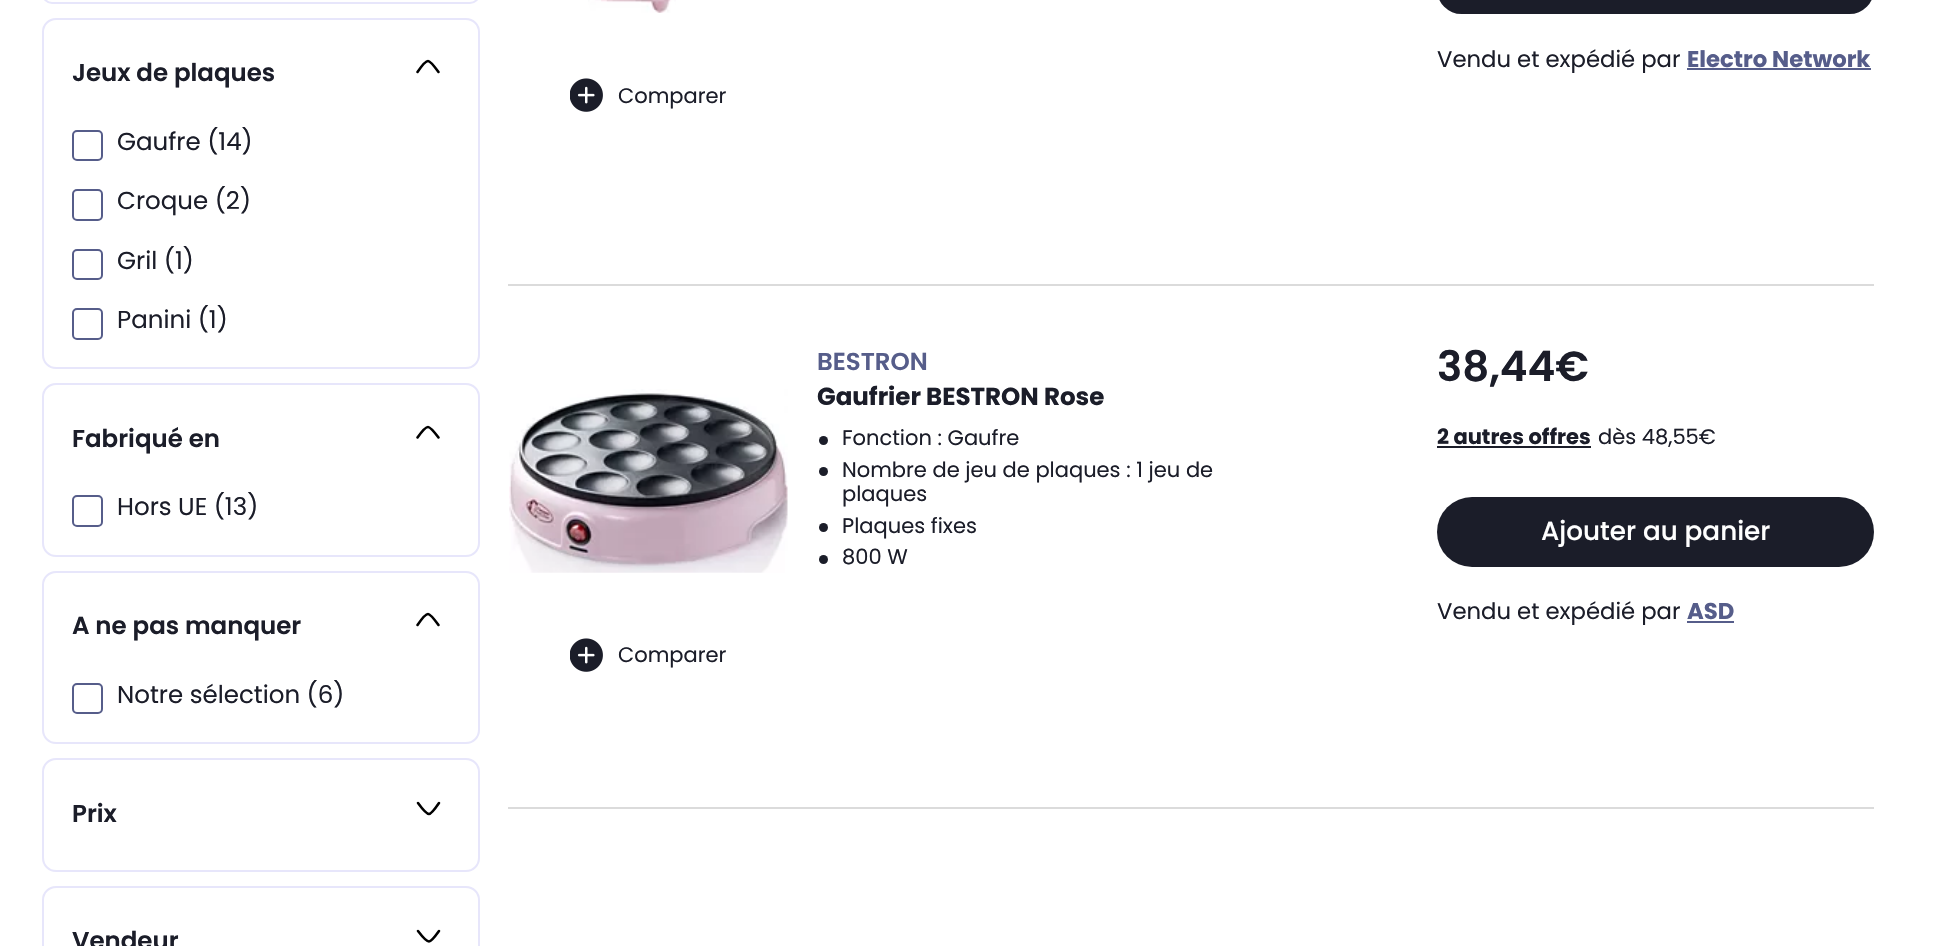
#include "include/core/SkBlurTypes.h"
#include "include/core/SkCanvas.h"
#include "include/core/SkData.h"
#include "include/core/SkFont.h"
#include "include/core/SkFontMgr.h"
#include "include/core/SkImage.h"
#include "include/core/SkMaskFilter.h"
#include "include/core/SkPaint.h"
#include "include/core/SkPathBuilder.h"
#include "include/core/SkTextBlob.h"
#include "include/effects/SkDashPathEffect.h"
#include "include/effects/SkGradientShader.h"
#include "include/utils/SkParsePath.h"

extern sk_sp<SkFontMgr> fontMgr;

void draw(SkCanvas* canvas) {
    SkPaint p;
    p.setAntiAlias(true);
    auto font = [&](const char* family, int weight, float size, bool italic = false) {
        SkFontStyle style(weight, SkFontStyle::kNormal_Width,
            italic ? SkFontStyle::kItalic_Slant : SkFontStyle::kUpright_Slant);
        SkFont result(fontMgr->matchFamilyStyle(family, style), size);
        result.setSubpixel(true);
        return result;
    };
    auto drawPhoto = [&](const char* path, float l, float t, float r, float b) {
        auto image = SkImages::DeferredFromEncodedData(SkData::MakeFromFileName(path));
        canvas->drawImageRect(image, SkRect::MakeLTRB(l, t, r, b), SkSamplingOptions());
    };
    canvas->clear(0xFFFFFFFF);
    p.setStyle(SkPaint::kStroke_Style);
    p.setStrokeWidth(2);
    p.setColor(0xFFE7E6FB);
    canvas->drawRoundRect(SkRect::MakeLTRB(43, -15, 479, 3), 13, 13, p);
    canvas->drawRoundRect(SkRect::MakeLTRB(43, 19, 479, 368), 13, 13, p);
    auto font1 = font("Poppins", 600, 24.5f);
    p.setStyle(SkPaint::kFill_Style);
    p.setColor(0xFF1B1D29);
    canvas->drawString("Jeux de plaques", 72, 81, font1, p);
    p.setStyle(SkPaint::kStroke_Style);
    p.setStrokeWidth(2.6f);
    p.setStrokeCap(SkPaint::kRound_Cap);
    p.setStrokeJoin(SkPaint::kRound_Join);
    p.setColor(0xFF000000);
    canvas->drawPath(SkPathBuilder().moveTo(438.5f, 72).cubicTo(438.5f, 72, 430.5f, 61, 428, 61).cubicTo(425, 61, 417.5f, 72, 417.5f, 72).detach(), p);
    p.setStrokeWidth(2);
    p.setStrokeCap(SkPaint::kButt_Cap);
    p.setStrokeJoin(SkPaint::kMiter_Join);
    p.setColor(0xFF565D8A);
    canvas->drawRoundRect(SkRect::MakeLTRB(73, 131, 102, 160), 4, 4, p);
    auto font2 = font("Poppins", 400, 24.5f);
    p.setStyle(SkPaint::kFill_Style);
    p.setColor(0xFF1B1D29);
    canvas->drawString("Gaufre (14)", 117, 150, font2, p);
    p.setStyle(SkPaint::kStroke_Style);
    p.setColor(0xFF565D8A);
    canvas->drawRoundRect(SkRect::MakeLTRB(73, 190, 102, 220), 4, 4, p);
    p.setStyle(SkPaint::kFill_Style);
    p.setColor(0xFF1B1D29);
    canvas->drawString("Croque (2)", 117, 209, font2, p);
    p.setStyle(SkPaint::kStroke_Style);
    p.setColor(0xFF565D8A);
    canvas->drawRoundRect(SkRect::MakeLTRB(73, 250, 102, 279), 4, 4, p);
    p.setStyle(SkPaint::kFill_Style);
    p.setColor(0xFF1B1D29);
    canvas->drawString("Gril (1)", 117, 269, font2, p);
    p.setStyle(SkPaint::kStroke_Style);
    p.setColor(0xFF565D8A);
    canvas->drawRoundRect(SkRect::MakeLTRB(73, 309, 102, 339), 4, 4, p);
    p.setStyle(SkPaint::kFill_Style);
    p.setColor(0xFF1B1D29);
    canvas->drawString("Panini (1)", 117, 328, font2, p);
    p.setStyle(SkPaint::kStroke_Style);
    p.setColor(0xFFE7E6FB);
    canvas->drawRoundRect(SkRect::MakeLTRB(43, 384, 479, 556), 13, 13, p);
    p.setStyle(SkPaint::kFill_Style);
    p.setColor(0xFF1B1D29);
    canvas->drawString("Fabriqué en", 72, 447, font1, p);
    p.setStyle(SkPaint::kStroke_Style);
    p.setStrokeWidth(2.6f);
    p.setStrokeCap(SkPaint::kRound_Cap);
    p.setStrokeJoin(SkPaint::kRound_Join);
    p.setColor(0xFF000000);
    canvas->drawPath(SkPathBuilder().moveTo(438.5f, 437.5f).cubicTo(438.5f, 437.5f, 430.5f, 427, 428, 427).cubicTo(425, 427, 417.5f, 437.5f, 417.5f, 437.5f).detach(), p);
    p.setStrokeWidth(2);
    p.setStrokeCap(SkPaint::kButt_Cap);
    p.setStrokeJoin(SkPaint::kMiter_Join);
    p.setColor(0xFF565D8A);
    canvas->drawRoundRect(SkRect::MakeLTRB(73, 496, 102, 526), 4, 4, p);
    p.setStyle(SkPaint::kFill_Style);
    p.setColor(0xFF1B1D29);
    canvas->drawString("Hors UE (13)", 117, 515, font2, p);
    p.setStyle(SkPaint::kStroke_Style);
    p.setColor(0xFFE7E6FB);
    canvas->drawRoundRect(SkRect::MakeLTRB(43, 572, 479, 743), 13, 13, p);
    p.setStyle(SkPaint::kFill_Style);
    p.setColor(0xFF1B1D29);
    canvas->drawString("A ne pas manquer", 72, 634, font1, p);
    p.setStyle(SkPaint::kStroke_Style);
    p.setStrokeWidth(2.6f);
    p.setStrokeCap(SkPaint::kRound_Cap);
    p.setStrokeJoin(SkPaint::kRound_Join);
    p.setColor(0xFF000000);
    canvas->drawPath(SkPathBuilder().moveTo(438.5f, 625).cubicTo(438.5f, 625, 430.5f, 614, 428, 614).cubicTo(425, 614, 417.5f, 625, 417.5f, 625).detach(), p);
    p.setStrokeWidth(2);
    p.setStrokeCap(SkPaint::kButt_Cap);
    p.setStrokeJoin(SkPaint::kMiter_Join);
    p.setColor(0xFF565D8A);
    canvas->drawRoundRect(SkRect::MakeLTRB(73, 684, 102, 713), 4, 4, p);
    p.setStyle(SkPaint::kFill_Style);
    p.setColor(0xFF1B1D29);
    canvas->drawString("Notre sélection (6)", 117, 703, font2, p);
    p.setStyle(SkPaint::kStroke_Style);
    p.setColor(0xFFE7E6FB);
    canvas->drawRoundRect(SkRect::MakeLTRB(43, 759, 479, 871), 13, 13, p);
    p.setStyle(SkPaint::kFill_Style);
    p.setColor(0xFF1B1D29);
    canvas->drawString("Prix", 72, 822, font1, p);
    p.setStyle(SkPaint::kStroke_Style);
    p.setStrokeWidth(2.6f);
    p.setStrokeCap(SkPaint::kRound_Cap);
    p.setStrokeJoin(SkPaint::kRound_Join);
    p.setColor(0xFF000000);
    canvas->drawPath(SkPathBuilder().moveTo(418, 803).cubicTo(418, 803, 426, 814, 429, 814).cubicTo(431.5f, 814, 439, 803, 439, 803).detach(), p);
    p.setStrokeWidth(2);
    p.setStrokeCap(SkPaint::kButt_Cap);
    p.setStrokeJoin(SkPaint::kMiter_Join);
    p.setColor(0xFFE7E6FB);
    canvas->drawRoundRect(SkRect::MakeLTRB(43, 887, 479, 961), 13, 13, p);
    p.setStyle(SkPaint::kFill_Style);
    p.setColor(0xFF1B1D29);
    canvas->drawString("Vendeur", 72, 949, font1, p);
    p.setStyle(SkPaint::kStroke_Style);
    p.setStrokeWidth(2.6f);
    p.setStrokeCap(SkPaint::kRound_Cap);
    p.setStrokeJoin(SkPaint::kRound_Join);
    p.setColor(0xFF000000);
    canvas->drawPath(SkPathBuilder().moveTo(418, 931).cubicTo(418, 931, 426, 941.5f, 429, 941.5f).cubicTo(431.5f, 941.5f, 439, 931, 439, 931).detach(), p);
    p.setStyle(SkPaint::kFill_Style);
    p.setColor(0xFF1B1D29);
    canvas->drawRoundRect(SkRect::MakeLTRB(1437, -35, 1874, 14), 35, 35, p);
    auto font3 = font("Poppins", 400, 22.75f);
    canvas->drawString("Vendu et expédié par", 1437, 67, font3, p);
    auto font4 = font("Poppins", 700, 22.75f);
    p.setColor(0xFF565D8A);
    canvas->drawString("Electro Network", 1687, 67, font4, p);
    canvas->drawRect(SkRect::MakeLTRB(1687, 68, 1871, 70), p);
    drawPhoto("media/1.png", 588, 0, 676, 13);
    drawPhoto("media/2.png", 570, 78, 603, 112);
    auto font5 = font("Poppins", 400, 21);
    p.setColor(0xFF1B1D29);
    canvas->drawString("Comparer", 618, 103, font5, p);
    p.setColor(0xFFDBDBDB);
    canvas->drawRect(SkRect::MakeLTRB(508, 284, 1874, 286), p);
    p.setColor(0xFF565D8A);
    canvas->drawString("BESTRON", 817, 370, font1, p);
    auto font6 = font("Poppins", 700, 24.5f);
    p.setColor(0xFF1B1D29);
    canvas->drawString("Gaufrier BESTRON Rose", 817, 405, font6, p);
    canvas->drawCircle(823.5f, 440.5f, 4.5f, p);
    canvas->drawString("Fonction : Gaufre", 842, 445, font5, p);
    canvas->drawCircle(823.5f, 471.5f, 4.5f, p);
    canvas->drawString("Nombre de jeu de plaques : 1 jeu de", 842, 477, font5, p);
    canvas->drawString("plaques", 842, 501, font5, p);
    canvas->drawCircle(823.5f, 527.5f, 4.5f, p);
    canvas->drawString("Plaques fixes", 842, 533, font5, p);
    canvas->drawCircle(823.5f, 559.5f, 4.5f, p);
    canvas->drawString("800 W", 842, 564, font5, p);
    auto font7 = font("Poppins", 600, 42);
    canvas->drawString("38,44€", 1437, 381, font7, p);
    auto font8 = font("Poppins", 700, 21);
    canvas->drawString("2 autres offres", 1437, 444, font8, p);
    canvas->drawRect(SkRect::MakeLTRB(1437, 446, 1591, 448), p);
    canvas->drawString("dès 48,55€", 1598, 444, font5, p);
    canvas->drawRoundRect(SkRect::MakeLTRB(1437, 497, 1874, 567), 35, 35, p);
    auto font9 = font("Poppins", 500, 26.25f);
    p.setColor(0xFFFFFFFF);
    canvas->drawString("Ajouter au panier", 1541, 540, font9, p);
    p.setColor(0xFF1B1D29);
    canvas->drawString("Vendu et expédié par", 1437, 619, font3, p);
    p.setColor(0xFF565D8A);
    canvas->drawString("ASD", 1687, 619, font4, p);
    canvas->drawRect(SkRect::MakeLTRB(1687, 621, 1734, 623), p);
    drawPhoto("media/3.png", 509, 389, 788, 573);
    drawPhoto("media/2.png", 570, 638, 603, 672);
    p.setColor(0xFF1B1D29);
    canvas->drawString("Comparer", 618, 662, font5, p);
    p.setColor(0xFFDBDBDB);
    canvas->drawRect(SkRect::MakeLTRB(508, 807, 1874, 809), p);
}
